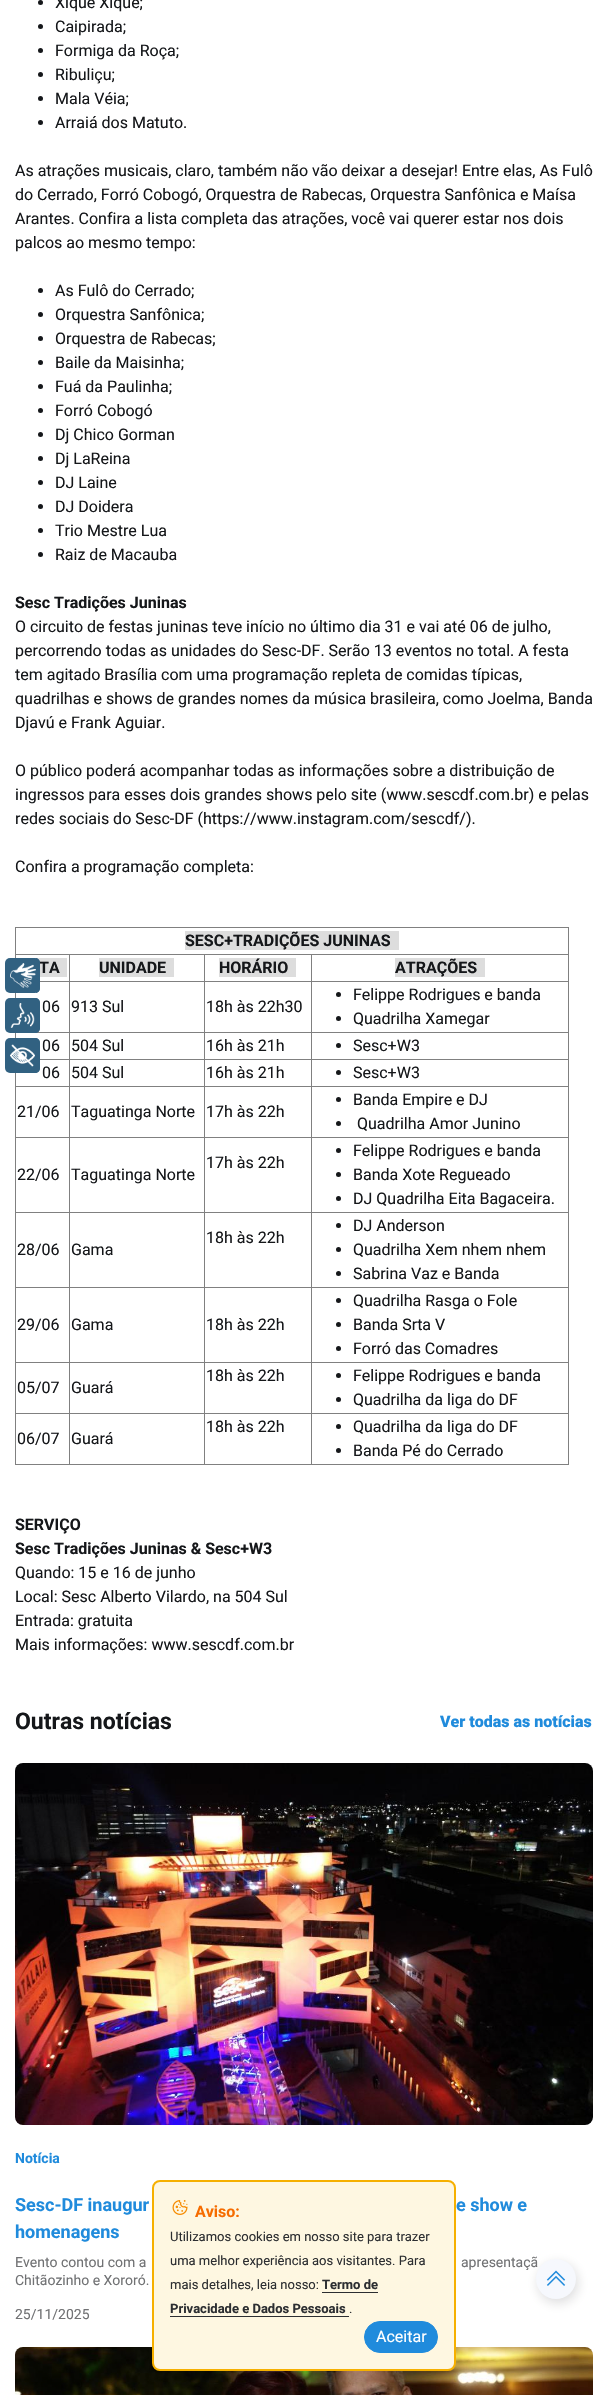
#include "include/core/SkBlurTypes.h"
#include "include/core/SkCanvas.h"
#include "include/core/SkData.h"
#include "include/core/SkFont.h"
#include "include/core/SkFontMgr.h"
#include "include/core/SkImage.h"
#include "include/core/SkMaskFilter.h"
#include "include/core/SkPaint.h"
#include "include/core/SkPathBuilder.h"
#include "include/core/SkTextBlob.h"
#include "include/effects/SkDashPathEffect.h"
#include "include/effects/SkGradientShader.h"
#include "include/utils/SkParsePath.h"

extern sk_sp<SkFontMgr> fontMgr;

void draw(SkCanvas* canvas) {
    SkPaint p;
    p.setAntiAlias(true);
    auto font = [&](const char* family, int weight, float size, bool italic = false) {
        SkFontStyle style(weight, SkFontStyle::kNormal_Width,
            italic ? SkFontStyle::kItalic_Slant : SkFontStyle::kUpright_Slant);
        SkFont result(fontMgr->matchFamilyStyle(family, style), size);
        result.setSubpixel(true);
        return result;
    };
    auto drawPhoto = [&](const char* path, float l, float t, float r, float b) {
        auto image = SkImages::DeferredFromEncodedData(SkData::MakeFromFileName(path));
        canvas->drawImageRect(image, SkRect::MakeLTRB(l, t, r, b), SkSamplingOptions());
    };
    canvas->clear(0xFFFFFFFF);
    p.setColor(0xFF15171A);
    canvas->drawCircle(40.5f, 2.5f, 2.5f, p);
    auto font1 = font("Roboto", 400, 16);
    canvas->drawString("Xique Xique;", 55, 8, font1, p);
    canvas->drawCircle(40.5f, 26.5f, 2.5f, p);
    canvas->drawString("Caipirada;", 55, 32, font1, p);
    canvas->drawCircle(40.5f, 50.5f, 2.5f, p);
    canvas->drawString("Formiga da Roça;", 55, 56, font1, p);
    canvas->drawCircle(40.5f, 74.5f, 2.5f, p);
    canvas->drawString("Ribuliçu;", 55, 80, font1, p);
    canvas->drawCircle(40.5f, 98.5f, 2.5f, p);
    canvas->drawString("Mala Véia;", 55, 104, font1, p);
    canvas->drawCircle(40.5f, 122.5f, 2.5f, p);
    {
        const struct { const char* s; float x, y; } items[] = {
            {"Arraiá dos Matuto.", 55, 128},
            {"As atrações musicais, claro, também não vão deixar a desejar! Entre elas, As Fulô", 15, 176},
            {"do Cerrado, Forró Cobogó, Orquestra de Rabecas, Orquestra Sanfônica e Maísa", 15, 200},
            {"Arantes. Confira a lista completa das atrações, você vai querer estar nos dois", 15, 224},
            {"palcos ao mesmo tempo:", 15, 248},
        };
        for (auto [s, x, y] : items) {
            canvas->drawString(s, x, y, font1, p);
        }
    }
    canvas->drawCircle(40.5f, 290.5f, 2.5f, p);
    canvas->drawString("As Fulô do Cerrado;", 55, 296, font1, p);
    canvas->drawCircle(40.5f, 314.5f, 2.5f, p);
    canvas->drawString("Orquestra Sanfônica;", 55, 320, font1, p);
    canvas->drawCircle(40.5f, 338.5f, 2.5f, p);
    canvas->drawString("Orquestra de Rabecas;", 55, 344, font1, p);
    canvas->drawCircle(40.5f, 362.5f, 2.5f, p);
    canvas->drawString("Baile da Maisinha;", 55, 368, font1, p);
    canvas->drawCircle(40.5f, 386.5f, 2.5f, p);
    canvas->drawString("Fuá da Paulinha;", 55, 392, font1, p);
    canvas->drawCircle(40.5f, 410.5f, 2.5f, p);
    canvas->drawString("Forró Cobogó", 55, 416, font1, p);
    canvas->drawCircle(40.5f, 434.5f, 2.5f, p);
    canvas->drawString("Dj Chico Gorman", 55, 440, font1, p);
    canvas->drawCircle(40.5f, 458.5f, 2.5f, p);
    canvas->drawString("Dj LaReina", 55, 464, font1, p);
    canvas->drawCircle(40.5f, 482.5f, 2.5f, p);
    canvas->drawString("DJ Laine", 55, 488, font1, p);
    canvas->drawCircle(40.5f, 506.5f, 2.5f, p);
    canvas->drawString("DJ Doidera", 55, 512, font1, p);
    canvas->drawCircle(40.5f, 530.5f, 2.5f, p);
    canvas->drawString("Trio Mestre Lua", 55, 536, font1, p);
    canvas->drawCircle(40.5f, 554.5f, 2.5f, p);
    canvas->drawString("Raiz de Macauba", 55, 560, font1, p);
    auto font2 = font("Roboto", 700, 16);
    canvas->drawString("Sesc Tradições Juninas", 15, 608, font2, p);
    {
        const struct { const char* s; float x, y; } items[] = {
            {"O circuito de festas juninas teve início no último dia 31 e vai até 06 de julho,", 15, 632},
            {"percorrendo todas as unidades do Sesc-DF. Serão 13 eventos no total. A festa", 15, 656},
            {"tem agitado Brasília com uma programação repleta de comidas típicas,", 15, 680},
            {"quadrilhas e shows de grandes nomes da música brasileira, como Joelma, Banda", 15, 704},
            {"Djavú e Frank Aguiar.", 15, 728},
            {"O público poderá acompanhar todas as informações sobre a distribuição de", 15, 776},
            {"ingressos para esses dois grandes shows pelo site (www.sescdf.com.br) e pelas", 15, 800},
            {"redes sociais do Sesc-DF (https://www.instagram.com/sescdf/).", 15, 824},
            {"Confira a programação completa:", 15, 872},
        };
        for (auto [s, x, y] : items) {
            canvas->drawString(s, x, y, font1, p);
        }
    }
    {
        const struct { float l, t, r, b; SkColor color; } items[] = {
            {15, 927, 569, 928, 0xFF808080},
            {568, 927, 569, 1465, 0xFF808080},
            {15, 1464, 569, 1465, 0xFF808080},
            {15, 927, 16, 1465, 0xFF808080},
            {185, 931, 399, 950, 0xFFDDDDDD},
        };
        for (auto [l, t, r, b, color] : items) {
            p.setColor(color);
            canvas->drawRect(SkRect::MakeLTRB(l, t, r, b), p);
        }
    }
    p.setColor(0xFF15171A);
    canvas->drawString("SESC+TRADIÇÕES JUNINAS", 185, 946, font2, p);
    {
        const struct { float l, t, r, b; SkColor color; } items[] = {
            {311, 954, 569, 955, 0xFF808080},
            {311, 981, 569, 982, 0xFF808080},
            {311, 1032, 569, 1033, 0xFF808080},
            {311, 1059, 569, 1060, 0xFF808080},
            {311, 1086, 569, 1087, 0xFF808080},
            {311, 1137, 569, 1138, 0xFF808080},
            {311, 1212, 569, 1213, 0xFF808080},
            {311, 1287, 569, 1288, 0xFF808080},
            {311, 1362, 569, 1363, 0xFF808080},
            {311, 1413, 569, 1414, 0xFF808080},
            {311, 1413, 312, 1465, 0xFF808080},
            {204, 1413, 312, 1414, 0xFF808080},
            {311, 1362, 312, 1414, 0xFF808080},
            {204, 1362, 312, 1363, 0xFF808080},
            {311, 1287, 312, 1363, 0xFF808080},
            {204, 1287, 312, 1288, 0xFF808080},
            {311, 1212, 312, 1288, 0xFF808080},
            {204, 1212, 312, 1213, 0xFF808080},
            {311, 1137, 312, 1213, 0xFF808080},
            {204, 1137, 312, 1138, 0xFF808080},
            {311, 1086, 312, 1138, 0xFF808080},
            {204, 1086, 312, 1087, 0xFF808080},
            {311, 1059, 312, 1087, 0xFF808080},
            {204, 1059, 312, 1060, 0xFF808080},
            {311, 1032, 312, 1060, 0xFF808080},
            {204, 1032, 312, 1033, 0xFF808080},
            {311, 981, 312, 1033, 0xFF808080},
            {204, 981, 312, 982, 0xFF808080},
            {311, 954, 312, 982, 0xFF808080},
            {204, 954, 312, 955, 0xFF808080},
            {204, 1413, 205, 1465, 0xFF808080},
            {69, 1413, 205, 1414, 0xFF808080},
            {204, 1362, 205, 1414, 0xFF808080},
            {69, 1362, 205, 1363, 0xFF808080},
            {204, 1287, 205, 1363, 0xFF808080},
            {69, 1287, 205, 1288, 0xFF808080},
            {204, 1212, 205, 1288, 0xFF808080},
            {69, 1212, 205, 1213, 0xFF808080},
            {204, 1137, 205, 1213, 0xFF808080},
            {69, 1137, 205, 1138, 0xFF808080},
            {204, 1086, 205, 1138, 0xFF808080},
            {69, 1086, 205, 1087, 0xFF808080},
            {204, 1059, 205, 1087, 0xFF808080},
            {69, 1059, 205, 1060, 0xFF808080},
            {204, 1032, 205, 1060, 0xFF808080},
            {69, 1032, 205, 1033, 0xFF808080},
            {204, 981, 205, 1033, 0xFF808080},
            {69, 981, 205, 982, 0xFF808080},
            {204, 954, 205, 982, 0xFF808080},
            {69, 954, 205, 955, 0xFF808080},
            {69, 1413, 70, 1465, 0xFF808080},
            {15, 1413, 70, 1414, 0xFF808080},
            {69, 1362, 70, 1414, 0xFF808080},
            {15, 1362, 70, 1363, 0xFF808080},
            {69, 1287, 70, 1363, 0xFF808080},
            {15, 1287, 70, 1288, 0xFF808080},
            {69, 1212, 70, 1288, 0xFF808080},
            {15, 1212, 70, 1213, 0xFF808080},
            {69, 1137, 70, 1213, 0xFF808080},
            {15, 1137, 70, 1138, 0xFF808080},
            {69, 1086, 70, 1138, 0xFF808080},
            {15, 1086, 70, 1087, 0xFF808080},
            {69, 1059, 70, 1087, 0xFF808080},
            {40, 1059, 70, 1060, 0xFF808080},
            {69, 1032, 70, 1060, 0xFF808080},
            {35, 1032, 70, 1033, 0xFF808080},
            {69, 981, 70, 1033, 0xFF808080},
            {40, 981, 70, 982, 0xFF808080},
            {69, 954, 70, 982, 0xFF808080},
            {15, 954, 70, 955, 0xFF808080},
            {35, 958, 67, 977, 0xFFDDDDDD},
        };
        for (auto [l, t, r, b, color] : items) {
            p.setColor(color);
            canvas->drawRect(SkRect::MakeLTRB(l, t, r, b), p);
        }
    }
    p.setColor(0xFF15171A);
    canvas->drawString("TA", 39, 973, font2, p);
    p.setColor(0xFFDDDDDD);
    canvas->drawRect(SkRect::MakeLTRB(99, 958, 174, 977), p);
    p.setColor(0xFF15171A);
    canvas->drawString("UNIDADE", 99, 973, font2, p);
    p.setColor(0xFFDDDDDD);
    canvas->drawRect(SkRect::MakeLTRB(219, 958, 296, 977), p);
    p.setColor(0xFF15171A);
    canvas->drawString("HORÁRIO", 219, 973, font2, p);
    p.setColor(0xFFDDDDDD);
    canvas->drawRect(SkRect::MakeLTRB(395, 958, 485, 977), p);
    p.setColor(0xFF15171A);
    canvas->drawString("ATRAÇÕES", 395, 973, font2, p);
    {
        const struct { const char* s; float x, y; } items[] = {
            {"06", 42, 1012},
            {"913 Sul", 71, 1012},
            {"18h às 22h30", 206, 1012},
        };
        for (auto [s, x, y] : items) {
            canvas->drawString(s, x, y, font1, p);
        }
    }
    canvas->drawCircle(338.5f, 994.5f, 2.5f, p);
    canvas->drawString("Felippe Rodrigues e banda", 353, 1000, font1, p);
    canvas->drawCircle(338.5f, 1018.5f, 2.5f, p);
    {
        const struct { const char* s; float x, y; } items[] = {
            {"Quadrilha Xamegar", 353, 1024},
            {"06", 42, 1051},
            {"504 Sul", 71, 1051},
            {"16h às 21h", 206, 1051},
        };
        for (auto [s, x, y] : items) {
            canvas->drawString(s, x, y, font1, p);
        }
    }
    canvas->drawCircle(338.5f, 1045.5f, 2.5f, p);
    {
        const struct { const char* s; float x, y; } items[] = {
            {"Sesc+W3", 353, 1051},
            {"06", 42, 1078},
            {"504 Sul", 71, 1078},
            {"16h às 21h", 206, 1078},
        };
        for (auto [s, x, y] : items) {
            canvas->drawString(s, x, y, font1, p);
        }
    }
    canvas->drawCircle(338.5f, 1072.5f, 2.5f, p);
    {
        const struct { const char* s; float x, y; } items[] = {
            {"Sesc+W3", 353, 1078},
            {"21/06", 17, 1117},
            {"Taguatinga Norte", 71, 1117},
            {"17h às 22h", 206, 1117},
        };
        for (auto [s, x, y] : items) {
            canvas->drawString(s, x, y, font1, p);
        }
    }
    canvas->drawCircle(338.5f, 1099.5f, 2.5f, p);
    canvas->drawString("Banda Empire e DJ", 353, 1105, font1, p);
    canvas->drawCircle(338.5f, 1123.5f, 2.5f, p);
    canvas->drawString("Quadrilha Amor Junino", 357, 1129, font1, p);
    canvas->drawString("17h às 22h", 206, 1168, font1, p);
    canvas->drawCircle(338.5f, 1150.5f, 2.5f, p);
    canvas->drawString("Felippe Rodrigues e banda", 353, 1156, font1, p);
    canvas->drawCircle(338.5f, 1174.5f, 2.5f, p);
    canvas->drawString("Banda Xote Regueado", 353, 1180, font1, p);
    canvas->drawCircle(338.5f, 1198.5f, 2.5f, p);
    {
        const struct { const char* s; float x, y; } items[] = {
            {"DJ Quadrilha Eita Bagaceira.", 353, 1204},
            {"22/06", 17, 1180},
            {"Taguatinga Norte", 71, 1180},
            {"18h às 22h", 206, 1243},
        };
        for (auto [s, x, y] : items) {
            canvas->drawString(s, x, y, font1, p);
        }
    }
    canvas->drawCircle(338.5f, 1225.5f, 2.5f, p);
    canvas->drawString("DJ Anderson", 353, 1231, font1, p);
    canvas->drawCircle(338.5f, 1249.5f, 2.5f, p);
    canvas->drawString("Quadrilha Xem nhem nhem", 353, 1255, font1, p);
    canvas->drawCircle(338.5f, 1273.5f, 2.5f, p);
    {
        const struct { const char* s; float x, y; } items[] = {
            {"Sabrina Vaz e Banda", 353, 1279},
            {"28/06", 17, 1255},
            {"Gama", 71, 1255},
            {"29/06", 17, 1330},
            {"Gama", 71, 1330},
            {"18h às 22h", 206, 1330},
        };
        for (auto [s, x, y] : items) {
            canvas->drawString(s, x, y, font1, p);
        }
    }
    canvas->drawCircle(338.5f, 1300.5f, 2.5f, p);
    canvas->drawString("Quadrilha Rasga o Fole", 353, 1306, font1, p);
    canvas->drawCircle(338.5f, 1324.5f, 2.5f, p);
    canvas->drawString("Banda Srta V", 353, 1330, font1, p);
    canvas->drawCircle(338.5f, 1348.5f, 2.5f, p);
    {
        const struct { const char* s; float x, y; } items[] = {
            {"Forró das Comadres", 353, 1354},
            {"05/07", 17, 1393},
            {"Guará", 71, 1393},
            {"18h às 22h", 206, 1381},
        };
        for (auto [s, x, y] : items) {
            canvas->drawString(s, x, y, font1, p);
        }
    }
    canvas->drawCircle(338.5f, 1375.5f, 2.5f, p);
    canvas->drawString("Felippe Rodrigues e banda", 353, 1381, font1, p);
    canvas->drawCircle(338.5f, 1399.5f, 2.5f, p);
    {
        const struct { const char* s; float x, y; } items[] = {
            {"Quadrilha da liga do DF", 353, 1405},
            {"06/07", 17, 1444},
            {"Guará", 71, 1444},
            {"18h às 22h", 206, 1432},
        };
        for (auto [s, x, y] : items) {
            canvas->drawString(s, x, y, font1, p);
        }
    }
    canvas->drawCircle(338.5f, 1426.5f, 2.5f, p);
    canvas->drawString("Quadrilha da liga do DF", 353, 1432, font1, p);
    canvas->drawCircle(338.5f, 1450.5f, 2.5f, p);
    canvas->drawString("Banda Pé do Cerrado", 353, 1456, font1, p);
    canvas->drawString("SERVIÇO", 15, 1530, font2, p);
    canvas->drawString("Sesc Tradições Juninas & Sesc+W3", 15, 1554, font2, p);
    {
        const struct { const char* s; float x, y; } items[] = {
            {"Quando: 15 e 16 de junho", 15, 1578},
            {"Local: Sesc Alberto Vilardo, na 504 Sul", 15, 1602},
            {"Entrada: gratuita", 15, 1626},
            {"Mais informações: www.sescdf.com.br", 15, 1650},
        };
        for (auto [s, x, y] : items) {
            canvas->drawString(s, x, y, font1, p);
        }
    }
    auto font3 = font("Roboto", 700, 23);
    canvas->drawString("Outras notícias", 15, 1729, font3, p);
    auto font4 = font("Roboto", 900, 16);
    p.setColor(0xFF208BDC);
    canvas->drawString("Ver todas as notícias", 440, 1727, font4, p);
    drawPhoto("media/1.png", 15, 1763, 593, 2125);
    auto font5 = font("Roboto", 700, 14);
    canvas->drawString("Notícia", 15, 2163, font5, p);
    auto font6 = font("Roboto", 700, 18);
    {
        const struct { const char* s; float x, y; } items[] = {
            {"Sesc-DF inaugur", 15, 2211},
            {"e show e", 456, 2211},
            {"homenagens", 15, 2238},
        };
        for (auto [s, x, y] : items) {
            canvas->drawString(s, x, y, font6, p);
        }
    }
    auto font7 = font("Roboto", 400, 14);
    p.setColor(0xFF717274);
    {
        const struct { const char* s; float x, y; } items[] = {
            {"Evento contou com a", 15, 2267},
            {"apresentaçã", 461, 2267},
            {"Chitãozinho e Xororó.", 15, 2285},
            {"25/11/2025", 15, 2319},
        };
        for (auto [s, x, y] : items) {
            canvas->drawString(s, x, y, font7, p);
        }
    }
    drawPhoto("media/2.png", 15, 2347, 593, 2395);
    p.setColor(0x2615171A);
    p.setMaskFilter(SkMaskFilter::MakeBlur(kNormal_SkBlurStyle, 6));
    canvas->drawRoundRect(SkRect::MakeLTRB(538, 2263, 578, 2303), 20, 20, p);
    p.setMaskFilter(nullptr);
    p.setColor(0xFFF6F8FD);
    canvas->drawCircle(556, 2279, 20, p);
    drawPhoto("media/3.png", 546, 2270, 566, 2286);
    p.setColor(0xFF316181);
    canvas->drawRoundRect(SkRect::MakeLTRB(5, 958, 40, 993), 5, 5, p);
    drawPhoto("media/4.png", 10, 963, 36, 988);
    canvas->save();
    canvas->clipPath(SkPathBuilder().moveTo(10, 958).lineTo(35, 958).cubicTo(38, 958, 40, 960, 40, 963).lineTo(40, 988).cubicTo(40, 991, 38, 993, 35, 993).lineTo(10, 993).cubicTo(7, 993, 5, 991, 5, 988).lineTo(5, 963).cubicTo(5, 960, 7, 958, 10, 958).close().detach(), true);
    canvas->drawRect(SkRect::MakeLTRB(36, 958, 40, 993), p);
    canvas->restore();
    canvas->drawRoundRect(SkRect::MakeLTRB(5, 998, 40, 1033), 5, 5, p);
    drawPhoto("media/5.png", 10, 1003, 35, 1028);
    canvas->drawPath(SkPathBuilder().moveTo(35, 998).cubicTo(38, 998, 40, 1000, 40, 1003).lineTo(40, 1028).cubicTo(40, 1031, 38, 1033, 35, 1033).close().detach(), p);
    canvas->drawRoundRect(SkRect::MakeLTRB(5, 1038, 40, 1073), 5, 5, p);
    drawPhoto("media/6.png", 10, 1044, 35, 1067);
    canvas->drawPath(SkPathBuilder().moveTo(35, 1038).cubicTo(38, 1038, 40, 1040, 40, 1043).lineTo(40, 1068).cubicTo(40, 1071, 38, 1073, 35, 1073).close().detach(), p);
    p.setColor(0xFFFEF7E1);
    canvas->drawRoundRect(SkRect::MakeLTRB(153, 2181, 455, 2370), 7, 7, p);
    p.setStyle(SkPaint::kStroke_Style);
    p.setStrokeWidth(2);
    p.setColor(0xFFF6B000);
    canvas->drawRoundRect(SkRect::MakeLTRB(153, 2181, 455, 2370), 7, 7, p);
    drawPhoto("media/7.png", 172, 2200, 188, 2215);
    p.setStyle(SkPaint::kFill_Style);
    p.setColor(0xFFF66C00);
    canvas->drawString("Aviso:", 195, 2217, font2, p);
    auto font8 = font("Roboto", 400, 13);
    p.setColor(0xFF2C2E31);
    {
        const struct { const char* s; float x, y; } items[] = {
            {"Utilizamos cookies em nosso site para trazer", 170, 2241},
            {"uma melhor experiência aos visitantes. Para", 170, 2265},
            {"mais detalhes, leia nosso:", 170, 2289},
        };
        for (auto [s, x, y] : items) {
            canvas->drawString(s, x, y, font8, p);
        }
    }
    auto font9 = font("Roboto", 700, 13);
    canvas->drawString("Termo de", 322, 2289, font9, p);
    canvas->drawRect(SkRect::MakeLTRB(322, 2292, 378, 2293), p);
    canvas->drawString("Privacidade e Dados Pessoais", 170, 2313, font9, p);
    canvas->drawRect(SkRect::MakeLTRB(170, 2316, 349, 2317), p);
    canvas->drawString(".", 349, 2313, font8, p);
    p.setColor(0xFF208BDC);
    canvas->drawRoundRect(SkRect::MakeLTRB(364.5f, 2321.5f, 437.5f, 2352.5f), 15.5f, 15.5f, p);
    p.setStyle(SkPaint::kStroke_Style);
    p.setStrokeWidth(1);
    canvas->drawRoundRect(SkRect::MakeLTRB(364.5f, 2321.5f, 437.5f, 2352.5f), 15.5f, 15.5f, p);
    p.setStyle(SkPaint::kFill_Style);
    p.setColor(0xFFFFFFFF);
    canvas->drawString("Aceitar", 376, 2342, font1, p);
}
